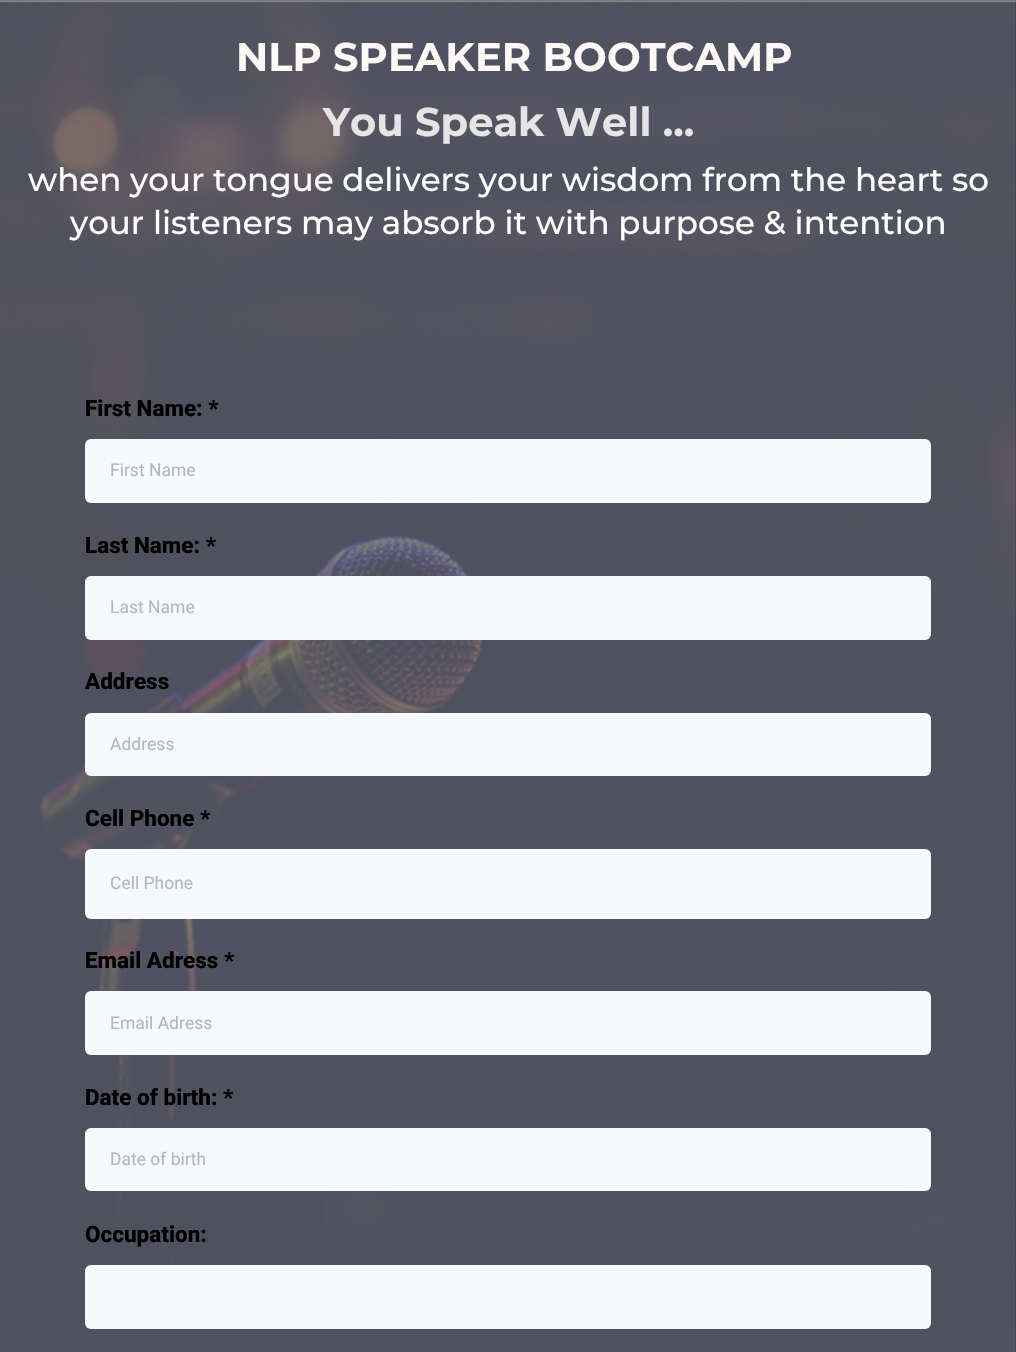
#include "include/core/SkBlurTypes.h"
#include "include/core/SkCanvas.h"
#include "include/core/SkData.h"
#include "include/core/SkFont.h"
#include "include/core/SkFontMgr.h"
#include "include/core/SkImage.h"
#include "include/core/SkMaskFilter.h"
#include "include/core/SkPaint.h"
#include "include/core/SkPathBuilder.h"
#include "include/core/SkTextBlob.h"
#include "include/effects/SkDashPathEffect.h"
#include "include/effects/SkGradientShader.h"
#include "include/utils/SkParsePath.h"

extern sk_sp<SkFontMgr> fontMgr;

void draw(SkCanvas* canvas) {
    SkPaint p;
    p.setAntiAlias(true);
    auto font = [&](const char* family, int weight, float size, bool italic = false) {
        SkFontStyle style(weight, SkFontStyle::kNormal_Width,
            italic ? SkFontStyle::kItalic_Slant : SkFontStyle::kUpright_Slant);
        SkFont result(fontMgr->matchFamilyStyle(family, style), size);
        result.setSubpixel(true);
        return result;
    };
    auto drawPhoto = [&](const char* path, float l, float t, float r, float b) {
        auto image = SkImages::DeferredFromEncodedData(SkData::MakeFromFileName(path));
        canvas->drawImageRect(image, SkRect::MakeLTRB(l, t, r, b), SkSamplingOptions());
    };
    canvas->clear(0xFF000000);
    drawPhoto("media/1.png", 0, 0, 1016, 1352);
    auto font1 = font("Montserrat", 700, 40);
    p.setColor(0xFFFEF9F5);
    canvas->drawString("NLP SPEAKER BOOTCAMP", 236, 71, font1, p);
    p.setColor(0xFFE5E5E5);
    canvas->drawString("You Speak Well ...", 323, 136, font1, p);
    auto font2 = font("Montserrat", 500, 32.5f);
    p.setColor(0xFFFFFFFF);
    canvas->drawString("when your tongue delivers your wisdom from the heart so", 28, 191, font2, p);
    canvas->drawString("your listeners may absorb it with purpose & intention", 70, 234, font2, p);
    auto font3 = font("Roboto", 800, 22.5f);
    p.setColor(0xFF000000);
    canvas->drawString("First Name: *", 85, 416, font3, p);
    p.setColor(0xFFF7FAFC);
    canvas->drawRoundRect(SkRect::MakeLTRB(85, 439, 931, 503), 6, 6, p);
    auto font4 = font("Roboto", 400, 17.5f);
    p.setColor(0xFFAFB8BC);
    canvas->drawString("First Name", 110, 476, font4, p);
    p.setColor(0xFF000000);
    canvas->drawString("Last Name: *", 85, 553, font3, p);
    p.setColor(0xFFF7FAFC);
    canvas->drawRoundRect(SkRect::MakeLTRB(85, 576, 931, 640), 6, 6, p);
    p.setColor(0xFFAFB8BC);
    canvas->drawString("Last Name", 110, 613, font4, p);
    p.setColor(0xFF000000);
    canvas->drawString("Address", 85, 689, font3, p);
    p.setColor(0xFFF7FAFC);
    canvas->drawRoundRect(SkRect::MakeLTRB(85, 713, 931, 776), 6, 6, p);
    p.setColor(0xFFAFB8BC);
    canvas->drawString("Address", 110, 750, font4, p);
    p.setColor(0xFF000000);
    canvas->drawString("Cell Phone *", 85, 826, font3, p);
    p.setColor(0xFFF7FAFC);
    canvas->drawRoundRect(SkRect::MakeLTRB(85, 849, 931, 919), 6, 6, p);
    p.setColor(0xFFAFB8BC);
    canvas->drawString("Cell Phone", 110, 889, font4, p);
    p.setColor(0xFF000000);
    canvas->drawString("Email Adress *", 85, 968, font3, p);
    p.setColor(0xFFF7FAFC);
    canvas->drawRoundRect(SkRect::MakeLTRB(85, 991, 931, 1055), 6, 6, p);
    p.setColor(0xFFAFB8BC);
    canvas->drawString("Email Adress", 110, 1029, font4, p);
    p.setColor(0xFF000000);
    canvas->drawString("Date of birth: *", 85, 1105, font3, p);
    p.setColor(0xFFF7FAFC);
    canvas->drawRoundRect(SkRect::MakeLTRB(85, 1128, 931, 1191), 6, 6, p);
    p.setColor(0xFFAFB8BC);
    canvas->drawString("Date of birth", 110, 1165, font4, p);
    p.setColor(0xFF000000);
    canvas->drawString("Occupation:", 85, 1242, font3, p);
    p.setColor(0xFFF7FAFC);
    canvas->drawRoundRect(SkRect::MakeLTRB(85, 1265, 931, 1329), 6, 6, p);
}
